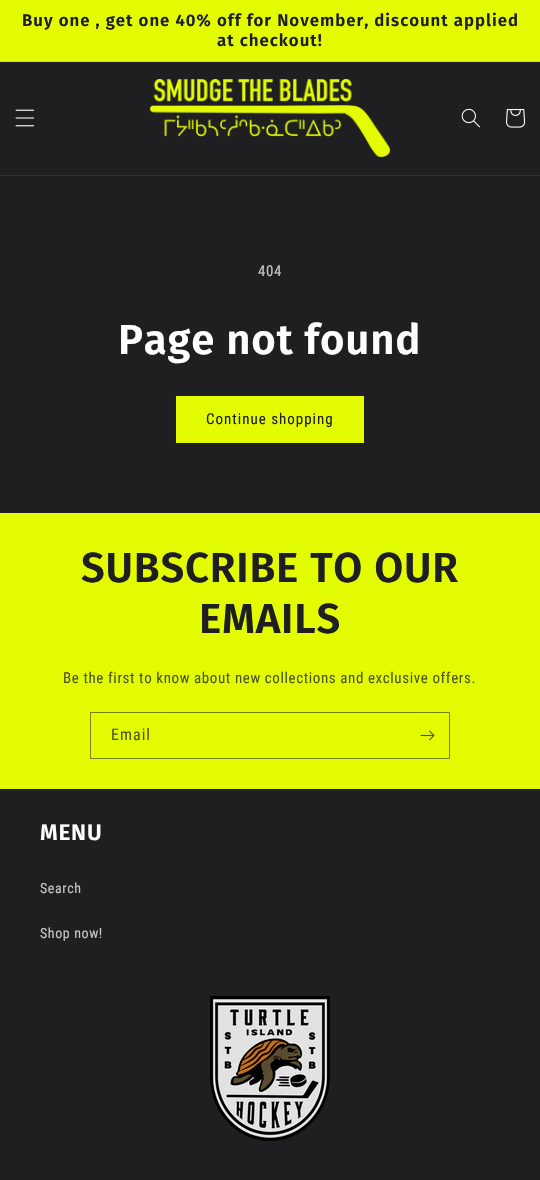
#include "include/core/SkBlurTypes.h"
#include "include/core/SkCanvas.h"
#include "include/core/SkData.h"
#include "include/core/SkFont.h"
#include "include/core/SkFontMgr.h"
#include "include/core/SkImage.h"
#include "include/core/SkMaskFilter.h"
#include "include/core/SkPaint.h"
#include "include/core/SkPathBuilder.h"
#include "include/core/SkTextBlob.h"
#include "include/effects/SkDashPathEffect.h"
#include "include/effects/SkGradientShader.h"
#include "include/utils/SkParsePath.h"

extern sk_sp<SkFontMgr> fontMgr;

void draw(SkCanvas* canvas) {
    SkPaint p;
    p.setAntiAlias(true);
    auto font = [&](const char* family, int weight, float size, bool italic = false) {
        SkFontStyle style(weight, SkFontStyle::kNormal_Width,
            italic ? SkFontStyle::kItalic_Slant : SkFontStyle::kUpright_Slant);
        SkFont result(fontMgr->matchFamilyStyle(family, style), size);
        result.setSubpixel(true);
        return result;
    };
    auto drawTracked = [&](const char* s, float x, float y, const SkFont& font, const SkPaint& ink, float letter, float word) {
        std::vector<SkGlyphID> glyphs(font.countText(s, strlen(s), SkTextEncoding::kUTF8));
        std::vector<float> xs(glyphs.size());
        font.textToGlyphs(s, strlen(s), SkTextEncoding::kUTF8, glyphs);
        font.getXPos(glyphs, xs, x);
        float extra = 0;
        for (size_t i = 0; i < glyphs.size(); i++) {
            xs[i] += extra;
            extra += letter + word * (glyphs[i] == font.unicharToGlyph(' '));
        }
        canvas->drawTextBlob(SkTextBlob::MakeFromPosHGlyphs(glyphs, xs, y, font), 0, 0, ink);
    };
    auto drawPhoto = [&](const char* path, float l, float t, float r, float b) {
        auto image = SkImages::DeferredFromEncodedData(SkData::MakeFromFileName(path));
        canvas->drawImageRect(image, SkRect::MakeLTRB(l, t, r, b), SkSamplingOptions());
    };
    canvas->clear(0xFF1F1F21);
    p.setColor(0xFFE3FC02);
    canvas->drawRect(SkRect::MakeLTRB(0, 0, 540, 61), p);
    p.setColor(0xFFD3EA04);
    canvas->drawRect(SkRect::MakeLTRB(0, 61, 540, 62), p);
    auto font1 = font("Fira Sans", 600, 16.8f);
    p.setColor(0xFF1F1F21);
    drawTracked("Buy one , get one 40% off for November, discount applied", 22, 26, font1, p, 1, 0);
    drawTracked("at checkout!", 217, 46, font1, p, 1, 0);
    p.setColor(0xFF313133);
    canvas->drawRect(SkRect::MakeLTRB(0, 175, 540, 176), p);
    drawPhoto("media/1.png", 15, 109, 35, 127);
    drawPhoto("media/2.png", 150, 79, 390, 157);
    drawPhoto("media/3.png", 461, 108, 480, 128);
    drawPhoto("media/4.png", 506, 109, 526, 128);
    auto font2 = font("Roboto Condensed", 400, 15);
    p.setColor(0xFFC7C7C8);
    drawTracked("404", 258, 276, font2, p, 0.6f, 0);
    auto font3 = font("Fira Sans", 600, 42);
    p.setColor(0xFFFFFFFF);
    drawTracked("Page not found", 118, 354, font3, p, 0.8f, 0);
    p.setColor(0xFFE3FC02);
    canvas->drawRect(SkRect::MakeLTRB(176, 396, 364, 443), p);
    p.setColor(0xFF1F1F21);
    drawTracked("Continue shopping", 206, 424, font2, p, 1, 0);
    p.setColor(0xFFE3FC02);
    canvas->drawRect(SkRect::MakeLTRB(0, 513, 540, 789), p);
    p.setColor(0xFF1F1F21);
    drawTracked("SUBSCRIBE TO OUR", 81, 582, font3, p, 0.8f, 0);
    drawTracked("EMAILS", 199, 633, font3, p, 0.8f, 0);
    p.setColor(0xFF505619);
    drawTracked("Be the first to know about new collections and exclusive offers.", 63, 683, font2, p, 0.6f, 0);
    p.setStyle(SkPaint::kStroke_Style);
    p.setStrokeWidth(1);
    p.setColor(0xFF778213);
    canvas->drawRect(SkRect::MakeLTRB(90.5f, 712.5f, 449.5f, 758.5f), p);
    auto font4 = font("Roboto Condensed", 400, 16);
    p.setStyle(SkPaint::kFill_Style);
    p.setColor(0xFF505619);
    drawTracked("Email", 111, 740, font4, p, 1, 0);
    drawPhoto("media/5.png", 420, 730, 435, 741);
    auto font5 = font("Fira Sans", 600, 22.5f);
    p.setColor(0xFFFFFFFF);
    drawTracked("MENU", 40, 840, font5, p, 0.8f, 0);
    auto font6 = font("Roboto Condensed", 400, 14);
    p.setColor(0xFFC7C7C8);
    drawTracked("Search", 40, 893, font6, p, 0.6f, 0);
    drawTracked("Shop now!", 40, 938, font6, p, 0.6f, 0);
    drawPhoto("media/6.png", 210, 996, 330, 1141);
}
